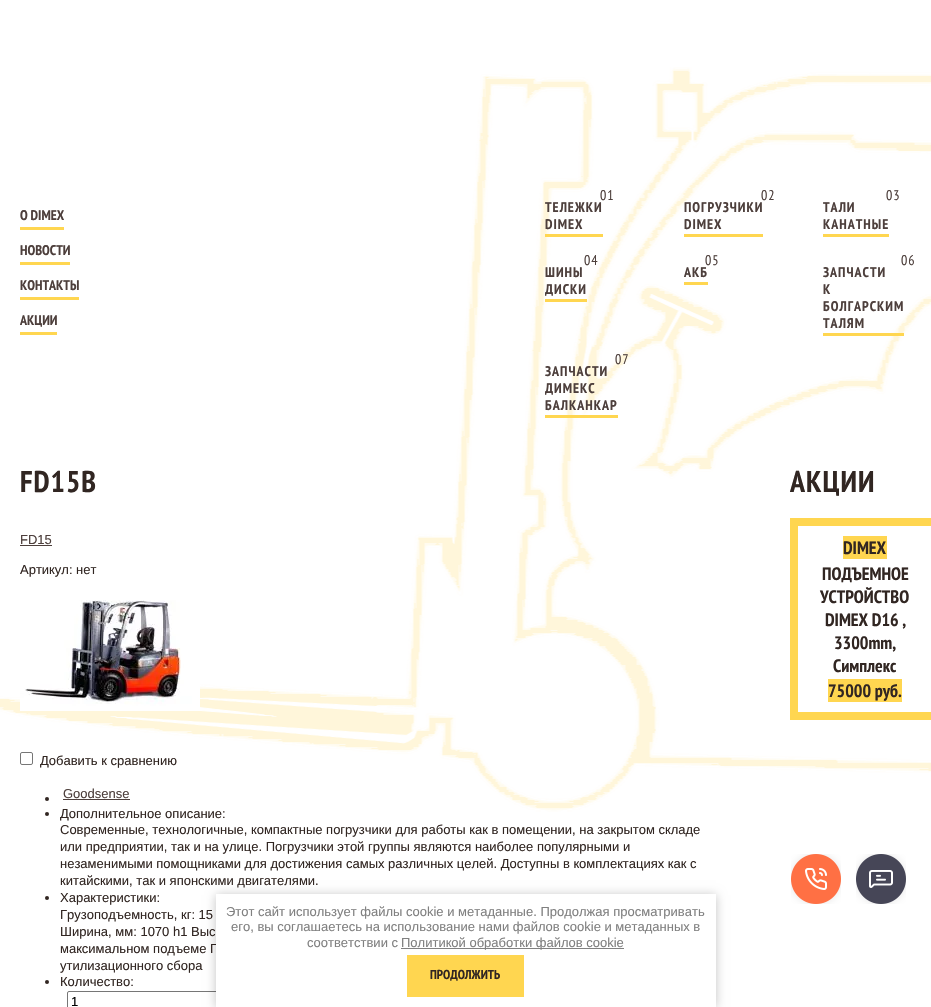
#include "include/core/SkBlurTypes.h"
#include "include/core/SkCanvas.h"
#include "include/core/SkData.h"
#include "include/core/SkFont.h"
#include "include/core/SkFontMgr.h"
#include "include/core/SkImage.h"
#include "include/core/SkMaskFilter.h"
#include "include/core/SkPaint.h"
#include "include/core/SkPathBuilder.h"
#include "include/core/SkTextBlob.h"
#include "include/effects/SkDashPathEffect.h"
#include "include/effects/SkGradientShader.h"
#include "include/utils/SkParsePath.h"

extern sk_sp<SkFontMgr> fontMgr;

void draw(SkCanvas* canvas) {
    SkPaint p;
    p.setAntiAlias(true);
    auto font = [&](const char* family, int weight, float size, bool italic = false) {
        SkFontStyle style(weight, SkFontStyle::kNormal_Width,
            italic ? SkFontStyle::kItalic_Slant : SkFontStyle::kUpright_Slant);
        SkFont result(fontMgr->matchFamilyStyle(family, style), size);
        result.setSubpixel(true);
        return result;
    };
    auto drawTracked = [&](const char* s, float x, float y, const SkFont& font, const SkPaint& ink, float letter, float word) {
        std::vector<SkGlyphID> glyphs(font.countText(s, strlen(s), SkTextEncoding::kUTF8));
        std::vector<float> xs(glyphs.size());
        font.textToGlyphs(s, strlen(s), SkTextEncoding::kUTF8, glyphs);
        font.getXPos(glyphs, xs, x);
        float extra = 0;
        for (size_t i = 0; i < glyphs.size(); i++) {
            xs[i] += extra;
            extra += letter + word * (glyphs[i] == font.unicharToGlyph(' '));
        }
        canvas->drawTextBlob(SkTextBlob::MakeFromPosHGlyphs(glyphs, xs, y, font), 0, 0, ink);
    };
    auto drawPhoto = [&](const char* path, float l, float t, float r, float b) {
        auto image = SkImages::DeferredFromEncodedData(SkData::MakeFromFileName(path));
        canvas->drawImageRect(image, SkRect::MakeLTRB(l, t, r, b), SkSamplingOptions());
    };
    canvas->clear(0xFFFFFFFF);
    drawPhoto("media/1.png", 0, 67, 931, 812);
    p.setColor(0xFFFFD650);
    canvas->drawRect(SkRect::MakeLTRB(20, 227, 64, 230), p);
    auto font1 = font("PT Sans Narrow", 700, 14);
    p.setColor(0xFF4D3F3C);
    canvas->drawString("О DIMEX", 20, 220, font1, p);
    p.setColor(0xFFFFD650);
    canvas->drawRect(SkRect::MakeLTRB(20, 262, 70, 265), p);
    p.setColor(0xFF4D3F3C);
    canvas->drawString("НОВОСТИ", 20, 255, font1, p);
    p.setColor(0xFFFFD650);
    canvas->drawRect(SkRect::MakeLTRB(20, 297, 79, 300), p);
    p.setColor(0xFF4D3F3C);
    canvas->drawString("КОНТАКТЫ", 20, 290, font1, p);
    p.setColor(0xFFFFD650);
    canvas->drawRect(SkRect::MakeLTRB(20, 332, 57, 335), p);
    p.setColor(0xFF4D3F3C);
    canvas->drawString("АКЦИИ", 20, 325, font1, p);
    p.setColor(0xFFFFD650);
    canvas->drawRect(SkRect::MakeLTRB(545, 234, 603, 237), p);
    auto font2 = font("PT Sans Narrow", 400, 14);
    p.setColor(0xFF4D3F3C);
    drawTracked("01", 600, 200, font2, p, 1, 0);
    drawTracked("ТЕЛЕЖКИ", 545, 212, font1, p, 1, 0);
    drawTracked("DIMEX", 545, 229, font1, p, 1, 0);
    p.setColor(0xFFFFD650);
    canvas->drawRect(SkRect::MakeLTRB(684, 234, 763, 237), p);
    p.setColor(0xFF4D3F3C);
    drawTracked("02", 761, 200, font2, p, 1, 0);
    drawTracked("ПОГРУЗЧИКИ", 684, 212, font1, p, 1, 0);
    drawTracked("DIMEX", 684, 229, font1, p, 1, 0);
    p.setColor(0xFFFFD650);
    canvas->drawRect(SkRect::MakeLTRB(823, 234, 889, 237), p);
    p.setColor(0xFF4D3F3C);
    drawTracked("03", 886, 200, font2, p, 1, 0);
    drawTracked("ТАЛИ", 823, 212, font1, p, 1, 0);
    drawTracked("КАНАТНЫЕ", 823, 229, font1, p, 1, 0);
    p.setColor(0xFFFFD650);
    canvas->drawRect(SkRect::MakeLTRB(545, 299, 587, 302), p);
    p.setColor(0xFF4D3F3C);
    drawTracked("04", 584, 265, font2, p, 1, 0);
    drawTracked("ШИНЫ", 545, 277, font1, p, 1, 0);
    drawTracked("ДИСКИ", 545, 294, font1, p, 1, 0);
    p.setColor(0xFFFFD650);
    canvas->drawRect(SkRect::MakeLTRB(684, 282, 708, 285), p);
    p.setColor(0xFF4D3F3C);
    drawTracked("05", 705, 265, font2, p, 1, 0);
    drawTracked("АКБ", 684, 277, font1, p, 1, 0);
    p.setColor(0xFFFFD650);
    canvas->drawRect(SkRect::MakeLTRB(823, 333, 904, 336), p);
    p.setColor(0xFF4D3F3C);
    drawTracked("06", 901, 265, font2, p, 1, 0);
    {
        const struct { const char* s; float x, y; } items[] = {
            {"ЗАПЧАСТИ", 823, 277},
            {"К", 823, 294},
            {"БОЛГАРСКИМ", 823, 311},
            {"ТАЛЯМ", 823, 328},
        };
        for (auto [s, x, y] : items) {
            drawTracked(s, x, y, font1, p, 1, 0);
        }
    }
    p.setColor(0xFFFFD650);
    canvas->drawRect(SkRect::MakeLTRB(545, 415, 618, 418), p);
    p.setColor(0xFF4D3F3C);
    drawTracked("07", 615, 364, font2, p, 1, 0);
    {
        const struct { const char* s; float x, y; } items[] = {
            {"ЗАПЧАСТИ", 545, 376},
            {"ДИМЕКС", 545, 393},
            {"БАЛКАНКАР", 545, 410},
        };
        for (auto [s, x, y] : items) {
            drawTracked(s, x, y, font1, p, 1, 0);
        }
    }
    auto font3 = font("PT Sans Narrow", 700, 30);
    p.setColor(0xFF312622);
    drawTracked("FD15B", 20, 492, font3, p, 1, 0);
    auto font4 = font("Liberation Sans", 400, 13);
    p.setColor(0xFF4D3F3C);
    canvas->drawString("FD15", 20, 544, font4, p);
    canvas->drawRect(SkRect::MakeLTRB(20, 545, 52, 546), p);
    p.setColor(0xFF312622);
    canvas->drawString("Артикул: нет", 20, 574, font4, p);
    drawPhoto("media/2.png", 20, 600, 200, 711);
    p.setStyle(SkPaint::kStroke_Style);
    p.setStrokeWidth(1);
    p.setColor(0xFF767676);
    canvas->drawRoundRect(SkRect::MakeLTRB(20.5f, 752.5f, 32.5f, 764.5f), 1.5f, 1.5f, p);
    p.setStyle(SkPaint::kFill_Style);
    p.setColor(0xFF312622);
    canvas->drawString("Добавить к сравнению", 40, 765, font4, p);
    canvas->drawCircle(47, 799, 2, p);
    p.setColor(0xFF4D3F3C);
    canvas->drawString("Goodsense", 63, 798, font4, p);
    canvas->drawRect(SkRect::MakeLTRB(63, 799, 130, 800), p);
    p.setColor(0xFF312622);
    canvas->drawCircle(47, 814, 2, p);
    {
        const struct { const char* s; float x, y; } items[] = {
            {"Дополнительное описание:", 60, 818},
            {"Современные, технологичные, компактные погрузчики для работы как в помещении, на закрытом складе", 60, 834},
            {"или предприятии, так и на улице. Погрузчики этой группы являются наиболее популярными и", 60, 851},
            {"незаменимыми помощниками для достижения самых различных целей. Доступны в комплектациях как с", 60, 868},
            {"китайскими, так и японскими двигателями.", 60, 885},
        };
        for (auto [s, x, y] : items) {
            canvas->drawString(s, x, y, font4, p);
        }
    }
    canvas->drawCircle(47, 898, 2, p);
    {
        const struct { const char* s; float x, y; } items[] = {
            {"Характеристики:", 60, 902},
            {"Грузоподъемность, кг: 15", 60, 919},
            {"Ширина, мм: 1070 h1 Выс", 60, 936},
            {"максимальном подъеме П", 60, 953},
            {"утилизационного сбора", 60, 970},
        };
        for (auto [s, x, y] : items) {
            canvas->drawString(s, x, y, font4, p);
        }
    }
    canvas->drawCircle(47, 982, 2, p);
    canvas->drawString("Количество:", 60, 986, font4, p);
    p.setStyle(SkPaint::kStroke_Style);
    p.setColor(0xFF767676);
    canvas->drawRoundRect(SkRect::MakeLTRB(67.5f, 991.5f, 251.5f, 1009.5f), 1.5f, 1.5f, p);
    p.setStyle(SkPaint::kFill_Style);
    p.setColor(0xFF000000);
    canvas->drawString("1", 71, 1006, font4, p);
    p.setColor(0xFF312622);
    drawTracked("АКЦИИ", 790, 492, font3, p, 1, 0);
    p.setStyle(SkPaint::kStroke_Style);
    p.setStrokeWidth(8);
    p.setColor(0xFFFFD650);
    canvas->drawRect(SkRect::MakeLTRB(794, 522, 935, 716), p);
    p.setStyle(SkPaint::kFill_Style);
    canvas->drawRect(SkRect::MakeLTRB(843, 536, 887, 559), p);
    auto font5 = font("PT Sans Narrow", 700, 18);
    p.setColor(0xFF312622);
    {
        const struct { const char* s; float x, y; } items[] = {
            {"DIMEX", 843, 554},
            {"ПОДЪЕМНОЕ", 822, 580},
            {"УСТРОЙСТВО", 820, 603},
            {"DIMEX D16 ,", 825, 626},
            {"3300mm,", 834, 649},
            {"Симплекс", 833, 672},
        };
        for (auto [s, x, y] : items) {
            canvas->drawString(s, x, y, font5, p);
        }
    }
    p.setColor(0xFFFFD650);
    canvas->drawRect(SkRect::MakeLTRB(828, 679, 902, 702), p);
    p.setColor(0xFF312622);
    canvas->drawString("75000 руб.", 828, 697, font5, p);
    drawPhoto("media/3.png", 791, 854, 841, 904);
    drawPhoto("media/4.png", 856, 854, 906, 904);
    p.setColor(0x3B000000);
    p.setMaskFilter(SkMaskFilter::MakeBlur(kNormal_SkBlurStyle, 5));
    canvas->drawRect(SkRect::MakeLTRB(216, 895, 716, 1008), p);
    p.setMaskFilter(nullptr);
    p.setColor(0xFFFFFFFF);
    canvas->drawRect(SkRect::MakeLTRB(216, 894, 716, 1007), p);
    p.setColor(0xFF808080);
    {
        const struct { const char* s; float x, y; } items[] = {
            {"Этот сайт использует файлы cookie и метаданные. Продолжая просматривать", 226, 916},
            {"его, вы соглашаетесь на использование нами файлов cookie и метаданных в", 231, 931},
            {"соответствии с", 307, 947},
        };
        for (auto [s, x, y] : items) {
            canvas->drawString(s, x, y, font4, p);
        }
    }
    canvas->drawRect(SkRect::MakeLTRB(401, 948, 624, 949), p);
    canvas->drawString("Политикой обработки файлов cookie", 401, 947, font4, p);
    p.setColor(0xFFFFD650);
    canvas->drawRect(SkRect::MakeLTRB(407, 955, 524, 997), p);
    auto font6 = font("PT Sans Narrow", 700, 13);
    p.setColor(0xFF312622);
    canvas->drawString("ПРОДОЛЖИТЬ", 430, 979, font6, p);
}
